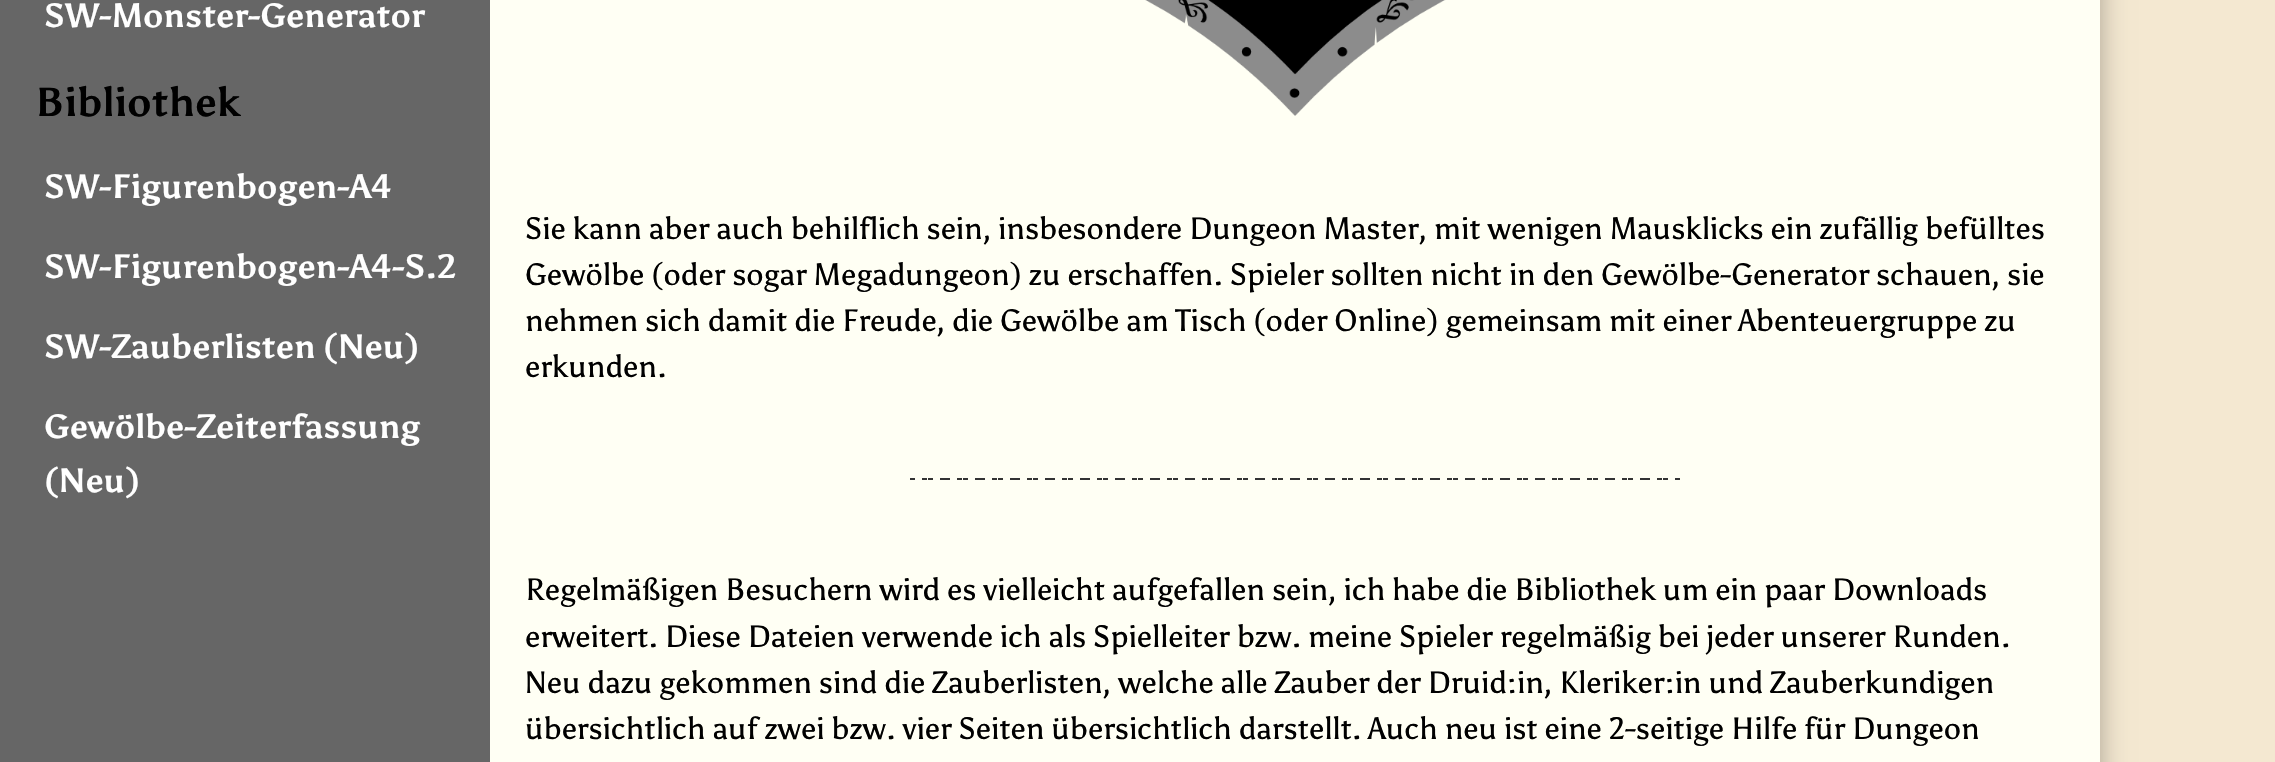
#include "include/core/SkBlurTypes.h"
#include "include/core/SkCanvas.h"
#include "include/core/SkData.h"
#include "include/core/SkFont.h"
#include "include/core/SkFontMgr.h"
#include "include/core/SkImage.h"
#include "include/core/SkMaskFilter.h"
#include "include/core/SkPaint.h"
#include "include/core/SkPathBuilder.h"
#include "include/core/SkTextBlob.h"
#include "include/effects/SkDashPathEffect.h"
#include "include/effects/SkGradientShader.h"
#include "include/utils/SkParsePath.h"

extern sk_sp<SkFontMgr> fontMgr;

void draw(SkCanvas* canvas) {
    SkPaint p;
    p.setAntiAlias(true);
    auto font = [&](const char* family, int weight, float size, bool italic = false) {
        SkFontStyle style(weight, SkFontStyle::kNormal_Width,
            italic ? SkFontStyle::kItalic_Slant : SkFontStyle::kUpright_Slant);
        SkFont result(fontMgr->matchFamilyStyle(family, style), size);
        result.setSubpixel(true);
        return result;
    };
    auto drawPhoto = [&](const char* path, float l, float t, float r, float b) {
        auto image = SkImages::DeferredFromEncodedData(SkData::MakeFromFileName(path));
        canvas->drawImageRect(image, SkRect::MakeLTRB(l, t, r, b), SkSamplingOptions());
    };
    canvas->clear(0xFFF4E8D1);
    p.setColor(0x4D000000);
    p.setMaskFilter(SkMaskFilter::MakeBlur(kNormal_SkBlurStyle, 13));
    canvas->drawRect(SkRect::MakeLTRB(0, -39, 2100, 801), p);
    p.setMaskFilter(nullptr);
    p.setColor(0xFF666666);
    canvas->drawRect(SkRect::MakeLTRB(0, 0, 490, 762), p);
    auto font1 = font("Asul", 700, 33.6f);
    p.setColor(0xFFFFFFFF);
    canvas->drawString("SW-Monster-Generator", 44, 27, font1, p);
    auto font2 = font("Asul", 700, 40.5f);
    p.setColor(0xFF000000);
    canvas->drawString("Bibliothek", 35, 116, font2, p);
    p.setColor(0xFFFFFFFF);
    {
        const struct { const char* s; float x, y; } items[] = {
            {"SW-Figurenbogen-A4", 44, 198},
            {"SW-Figurenbogen-A4-S.2", 44, 278},
            {"SW-Zauberlisten (Neu)", 44, 358},
            {"Gewölbe-Zeiterfassung", 44, 438},
            {"(Neu)", 44, 492},
        };
        for (auto [s, x, y] : items) {
            canvas->drawString(s, x, y, font1, p);
        }
    }
    p.setColor(0xFFFFFFF4);
    canvas->drawRect(SkRect::MakeLTRB(490, 0, 2100, 762), p);
    drawPhoto("media/1.png", 1145, 0, 1446, 116);
    auto font3 = font("Asul", 400, 30.8f);
    p.setColor(0xFF000000);
    {
        const struct { const char* s; float x, y; } items[] = {
            {"Sie kann aber auch behilflich sein, insbesondere Dungeon Master, mit wenigen Mausklicks ein zufällig befülltes", 525, 239},
            {"Gewölbe (oder sogar Megadungeon) zu erschaffen. Spieler sollten nicht in den Gewölbe-Generator", 525, 285},
            {"schauen, sie", 1876, 285},
            {"nehmen sich damit die Freude, die Gewölbe am Tisch (oder Online) gemeinsam mit einer Abenteuergruppe zu", 525, 331},
            {"erkunden.", 525, 377},
        };
        for (auto [s, x, y] : items) {
            canvas->drawString(s, x, y, font3, p);
        }
    }
    drawPhoto("media/2.png", 910, 478, 1680, 480);
    {
        const struct { const char* s; float x, y; } items[] = {
            {"Regelmäßigen Besuchern wird es vielleicht aufgefallen sein, ich habe die Bibliothek um ein paar Downloads", 525, 600},
            {"erweitert. Diese Dateien verwende ich als Spielleiter bzw. meine Spieler regelmäßig bei jeder unserer Runden.", 525, 647},
            {"Neu dazu gekommen sind die Zauberlisten, welche alle Zauber der Druid:in, Kleriker:in und Zauberkundigen", 525, 693},
            {"übersichtlich auf zwei bzw. vier Seiten übersichtlich darstellt.", 525, 739},
            {"Auch neu ist eine 2-seitige Hilfe für Dungeon", 1368, 739},
        };
        for (auto [s, x, y] : items) {
            canvas->drawString(s, x, y, font3, p);
        }
    }
}
